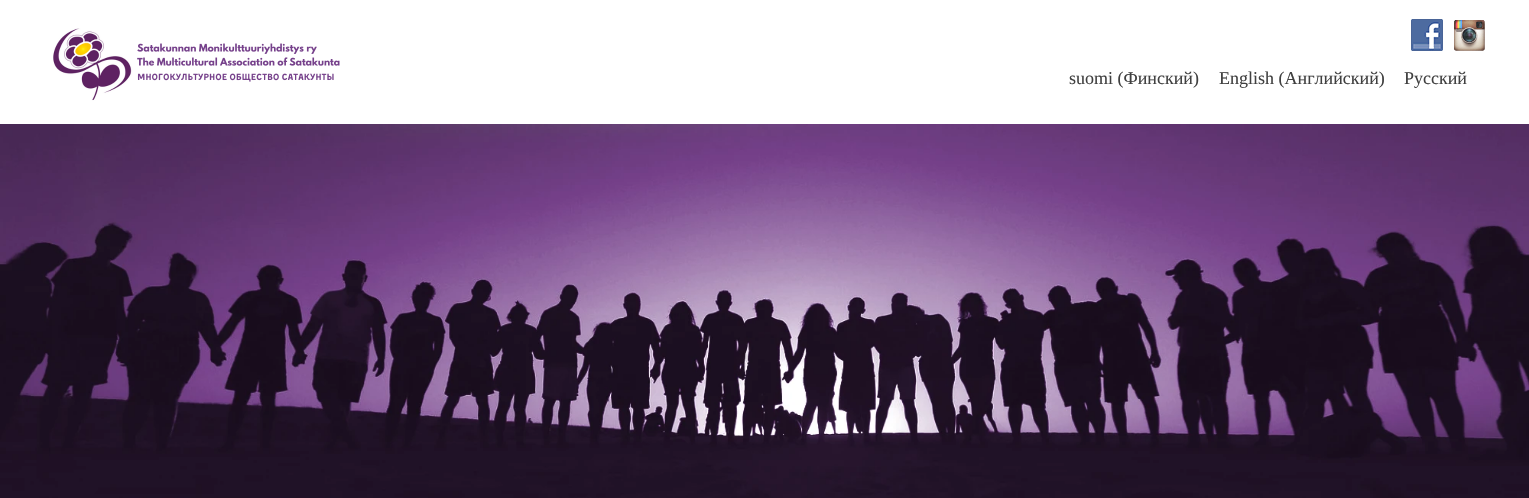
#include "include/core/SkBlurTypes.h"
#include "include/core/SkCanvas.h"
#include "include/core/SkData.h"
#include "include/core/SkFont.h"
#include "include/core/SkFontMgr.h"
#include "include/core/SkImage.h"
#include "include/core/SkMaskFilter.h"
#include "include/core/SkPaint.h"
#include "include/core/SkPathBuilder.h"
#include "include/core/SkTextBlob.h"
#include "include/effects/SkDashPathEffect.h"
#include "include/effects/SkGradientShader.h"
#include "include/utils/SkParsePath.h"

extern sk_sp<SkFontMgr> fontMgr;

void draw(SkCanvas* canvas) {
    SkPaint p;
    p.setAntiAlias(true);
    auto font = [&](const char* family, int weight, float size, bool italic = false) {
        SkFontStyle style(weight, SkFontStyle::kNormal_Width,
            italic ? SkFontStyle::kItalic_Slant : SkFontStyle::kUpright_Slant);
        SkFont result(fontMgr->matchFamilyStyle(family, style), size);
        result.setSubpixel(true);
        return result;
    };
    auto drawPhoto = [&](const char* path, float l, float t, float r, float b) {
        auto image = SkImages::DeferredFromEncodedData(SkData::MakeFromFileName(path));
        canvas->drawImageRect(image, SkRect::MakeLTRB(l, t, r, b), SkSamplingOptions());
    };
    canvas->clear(0xFFFFFFFF);
    drawPhoto("media/1.png", 53, 28, 340, 101);
    drawPhoto("media/2.png", 1411, 19, 1443, 51);
    drawPhoto("media/3.png", 1454, 20, 1485, 51);
    auto font1 = font("Liberation Serif", 400, 18);
    p.setColor(0xFF404040);
    {
        const struct { const char* s; float x, y; } items[] = {
            {"suomi (Финский)", 1069, 84},
            {"English (Английский)", 1219, 84},
            {"Русский", 1404, 84},
        };
        for (auto [s, x, y] : items) {
            canvas->drawString(s, x, y, font1, p);
        }
    }
    drawPhoto("media/4.png", 0, 124, 1529, 498);
}
